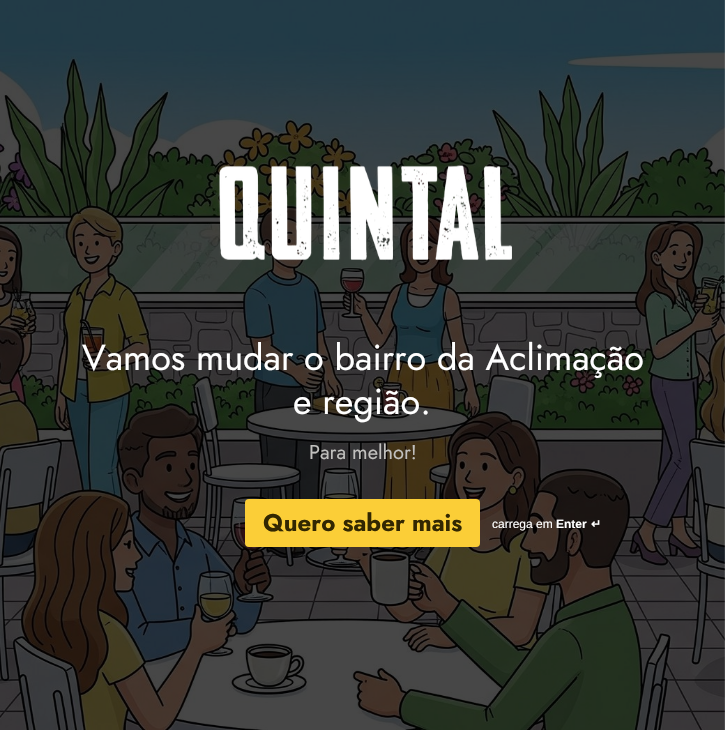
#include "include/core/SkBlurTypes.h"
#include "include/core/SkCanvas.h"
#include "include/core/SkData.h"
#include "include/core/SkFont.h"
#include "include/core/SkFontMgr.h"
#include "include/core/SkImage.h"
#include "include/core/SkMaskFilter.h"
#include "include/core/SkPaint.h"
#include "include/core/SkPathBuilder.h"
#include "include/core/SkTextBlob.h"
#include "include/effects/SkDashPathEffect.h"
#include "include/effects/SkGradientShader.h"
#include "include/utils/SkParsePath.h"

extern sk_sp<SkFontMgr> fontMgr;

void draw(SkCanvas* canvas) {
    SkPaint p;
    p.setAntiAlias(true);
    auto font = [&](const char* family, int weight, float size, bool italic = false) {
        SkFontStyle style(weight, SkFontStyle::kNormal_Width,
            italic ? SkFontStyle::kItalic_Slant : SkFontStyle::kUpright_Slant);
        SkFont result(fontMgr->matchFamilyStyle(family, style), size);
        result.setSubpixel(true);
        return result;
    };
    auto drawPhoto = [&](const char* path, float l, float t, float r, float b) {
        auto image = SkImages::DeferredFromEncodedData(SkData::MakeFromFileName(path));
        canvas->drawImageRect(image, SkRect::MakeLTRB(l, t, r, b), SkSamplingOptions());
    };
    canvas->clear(0xFFFFFFFF);
    drawPhoto("media/1.png", 0, 0, 725, 730);
    drawPhoto("media/2.png", 219, 165, 512, 261);
    auto font1 = font("Jost", 400, 36);
    p.setColor(0xFFFFFFFF);
    canvas->drawString("Vamos mudar o bairro da Aclimação", 82, 370, font1, p);
    canvas->drawString("e região.", 293, 414, font1, p);
    auto font2 = font("Jost", 400, 20);
    p.setColor(0xFFC1C0BE);
    canvas->drawString("Para melhor!", 309, 459, font2, p);
    p.setColor(0xFFFBCE37);
    canvas->drawRoundRect(SkRect::MakeLTRB(245, 499, 480, 547), 4, 4, p);
    auto font3 = font("Jost", 700, 24);
    p.setColor(0xFF322701);
    canvas->drawString("Quero saber mais", 263, 531, font3, p);
    auto font4 = font("Liberation Sans", 400, 12);
    p.setColor(0xFFFFFFFF);
    canvas->drawString("carrega em", 492, 528, font4, p);
    auto font5 = font("Liberation Sans", 700, 12);
    canvas->drawString("Enter", 556, 528, font5, p);
    auto font6 = font("DejaVu Sans", 700, 12);
    canvas->drawString("↵", 591, 528, font6, p);
}
